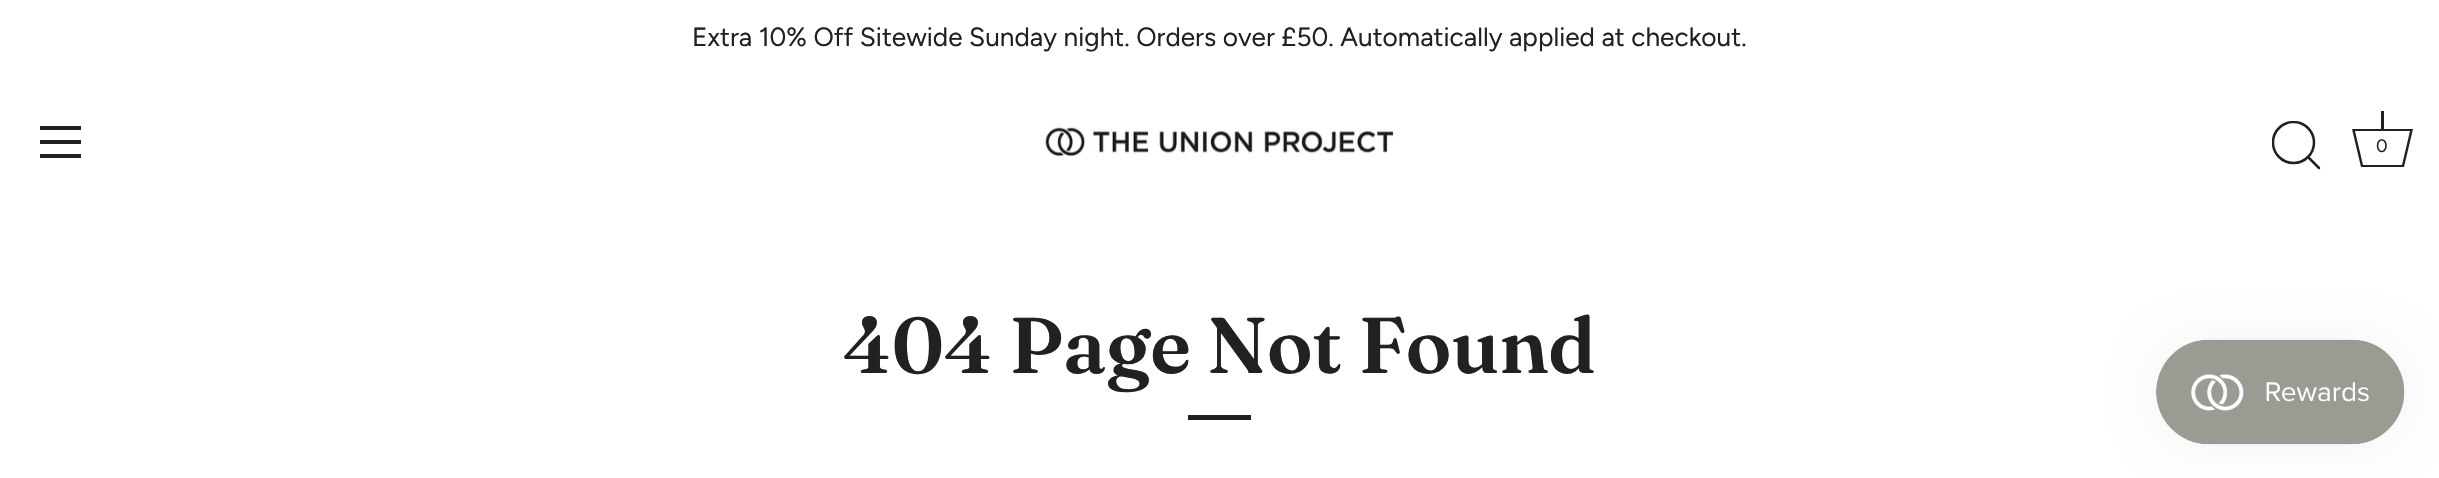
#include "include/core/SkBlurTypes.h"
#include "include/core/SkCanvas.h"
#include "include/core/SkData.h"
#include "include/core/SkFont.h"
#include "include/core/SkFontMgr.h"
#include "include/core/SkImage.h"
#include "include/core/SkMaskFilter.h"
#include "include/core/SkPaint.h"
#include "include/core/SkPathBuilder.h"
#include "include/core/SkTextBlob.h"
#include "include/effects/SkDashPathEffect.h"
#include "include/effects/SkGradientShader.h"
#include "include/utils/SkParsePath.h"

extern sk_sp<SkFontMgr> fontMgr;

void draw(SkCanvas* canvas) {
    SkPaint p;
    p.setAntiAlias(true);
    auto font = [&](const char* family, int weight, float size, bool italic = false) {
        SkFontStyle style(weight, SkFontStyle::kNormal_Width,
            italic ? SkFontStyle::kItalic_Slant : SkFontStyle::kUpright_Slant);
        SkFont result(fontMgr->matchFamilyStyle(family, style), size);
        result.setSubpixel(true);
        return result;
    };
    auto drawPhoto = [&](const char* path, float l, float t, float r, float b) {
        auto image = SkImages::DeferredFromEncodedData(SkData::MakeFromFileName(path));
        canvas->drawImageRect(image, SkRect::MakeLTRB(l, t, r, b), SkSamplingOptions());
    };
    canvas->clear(0xFFFFFFFF);
    auto font1 = font("Figtree", 400, 26.25f);
    p.setColor(0xFF212121);
    canvas->drawString("Extra 10% Off Sitewide Sunday night. Orders over £50. Automatically applied at checkout.", 692, 46, font1, p);
    {
        const struct { float l, t, r, b; SkColor color; } items[] = {
            {40, 126, 81, 130, 0xFF212121},
            {40, 140, 81, 144, 0xFF212121},
            {40, 154, 81, 158, 0xFF212121},
        };
        for (auto [l, t, r, b, color] : items) {
            p.setColor(color);
            canvas->drawRect(SkRect::MakeLTRB(l, t, r, b), p);
        }
    }
    drawPhoto("media/1.png", 1045, 126, 1394, 158);
    canvas->save();
    canvas->clipRect(SkRect::MakeLTRB(2272, 121, 2322, 172));
    p.setStyle(SkPaint::kStroke_Style);
    p.setStrokeWidth(2.5f);
    canvas->drawCircle(2293.5f, 142.5f, 20.5f, p);
    canvas->restore();
    p.setStrokeCap(SkPaint::kRound_Cap);
    p.setStrokeJoin(SkPaint::kRound_Join);
    canvas->drawPath(SkPathBuilder().moveTo(2319, 168).lineTo(2308, 157).detach(), p);
    p.setStyle(SkPaint::kFill_Style);
    canvas->drawRect(SkRect::MakeLTRB(2381, 111, 2384, 129), p);
    canvas->drawPath(SkPathBuilder().moveTo(2410, 131).lineTo(2402, 165).lineTo(2363, 165).lineTo(2355, 131).lineTo(2410, 131).moveTo(2413, 129).lineTo(2352, 129).lineTo(2361, 167).lineTo(2404, 167).close().detach(), p);
    auto font2 = font("Figtree", 400, 18);
    canvas->drawString("0", 2376, 152, font2, p);
    auto font3 = font("Fraunces", 600, 78.75f);
    canvas->drawString("404 Page Not Found", 843, 373, font3, p);
    canvas->drawRect(SkRect::MakeLTRB(1188, 415, 1251, 420), p);
    p.setColor(0x0D000000);
    p.setMaskFilter(SkMaskFilter::MakeBlur(kNormal_SkBlurStyle, 22));
    canvas->drawRoundRect(SkRect::MakeLTRB(2156, 340, 2405, 445), 52.5f, 52.5f, p);
    p.setMaskFilter(nullptr);
    drawPhoto("media/2.png", 2156, 339, 2405, 445);
}
